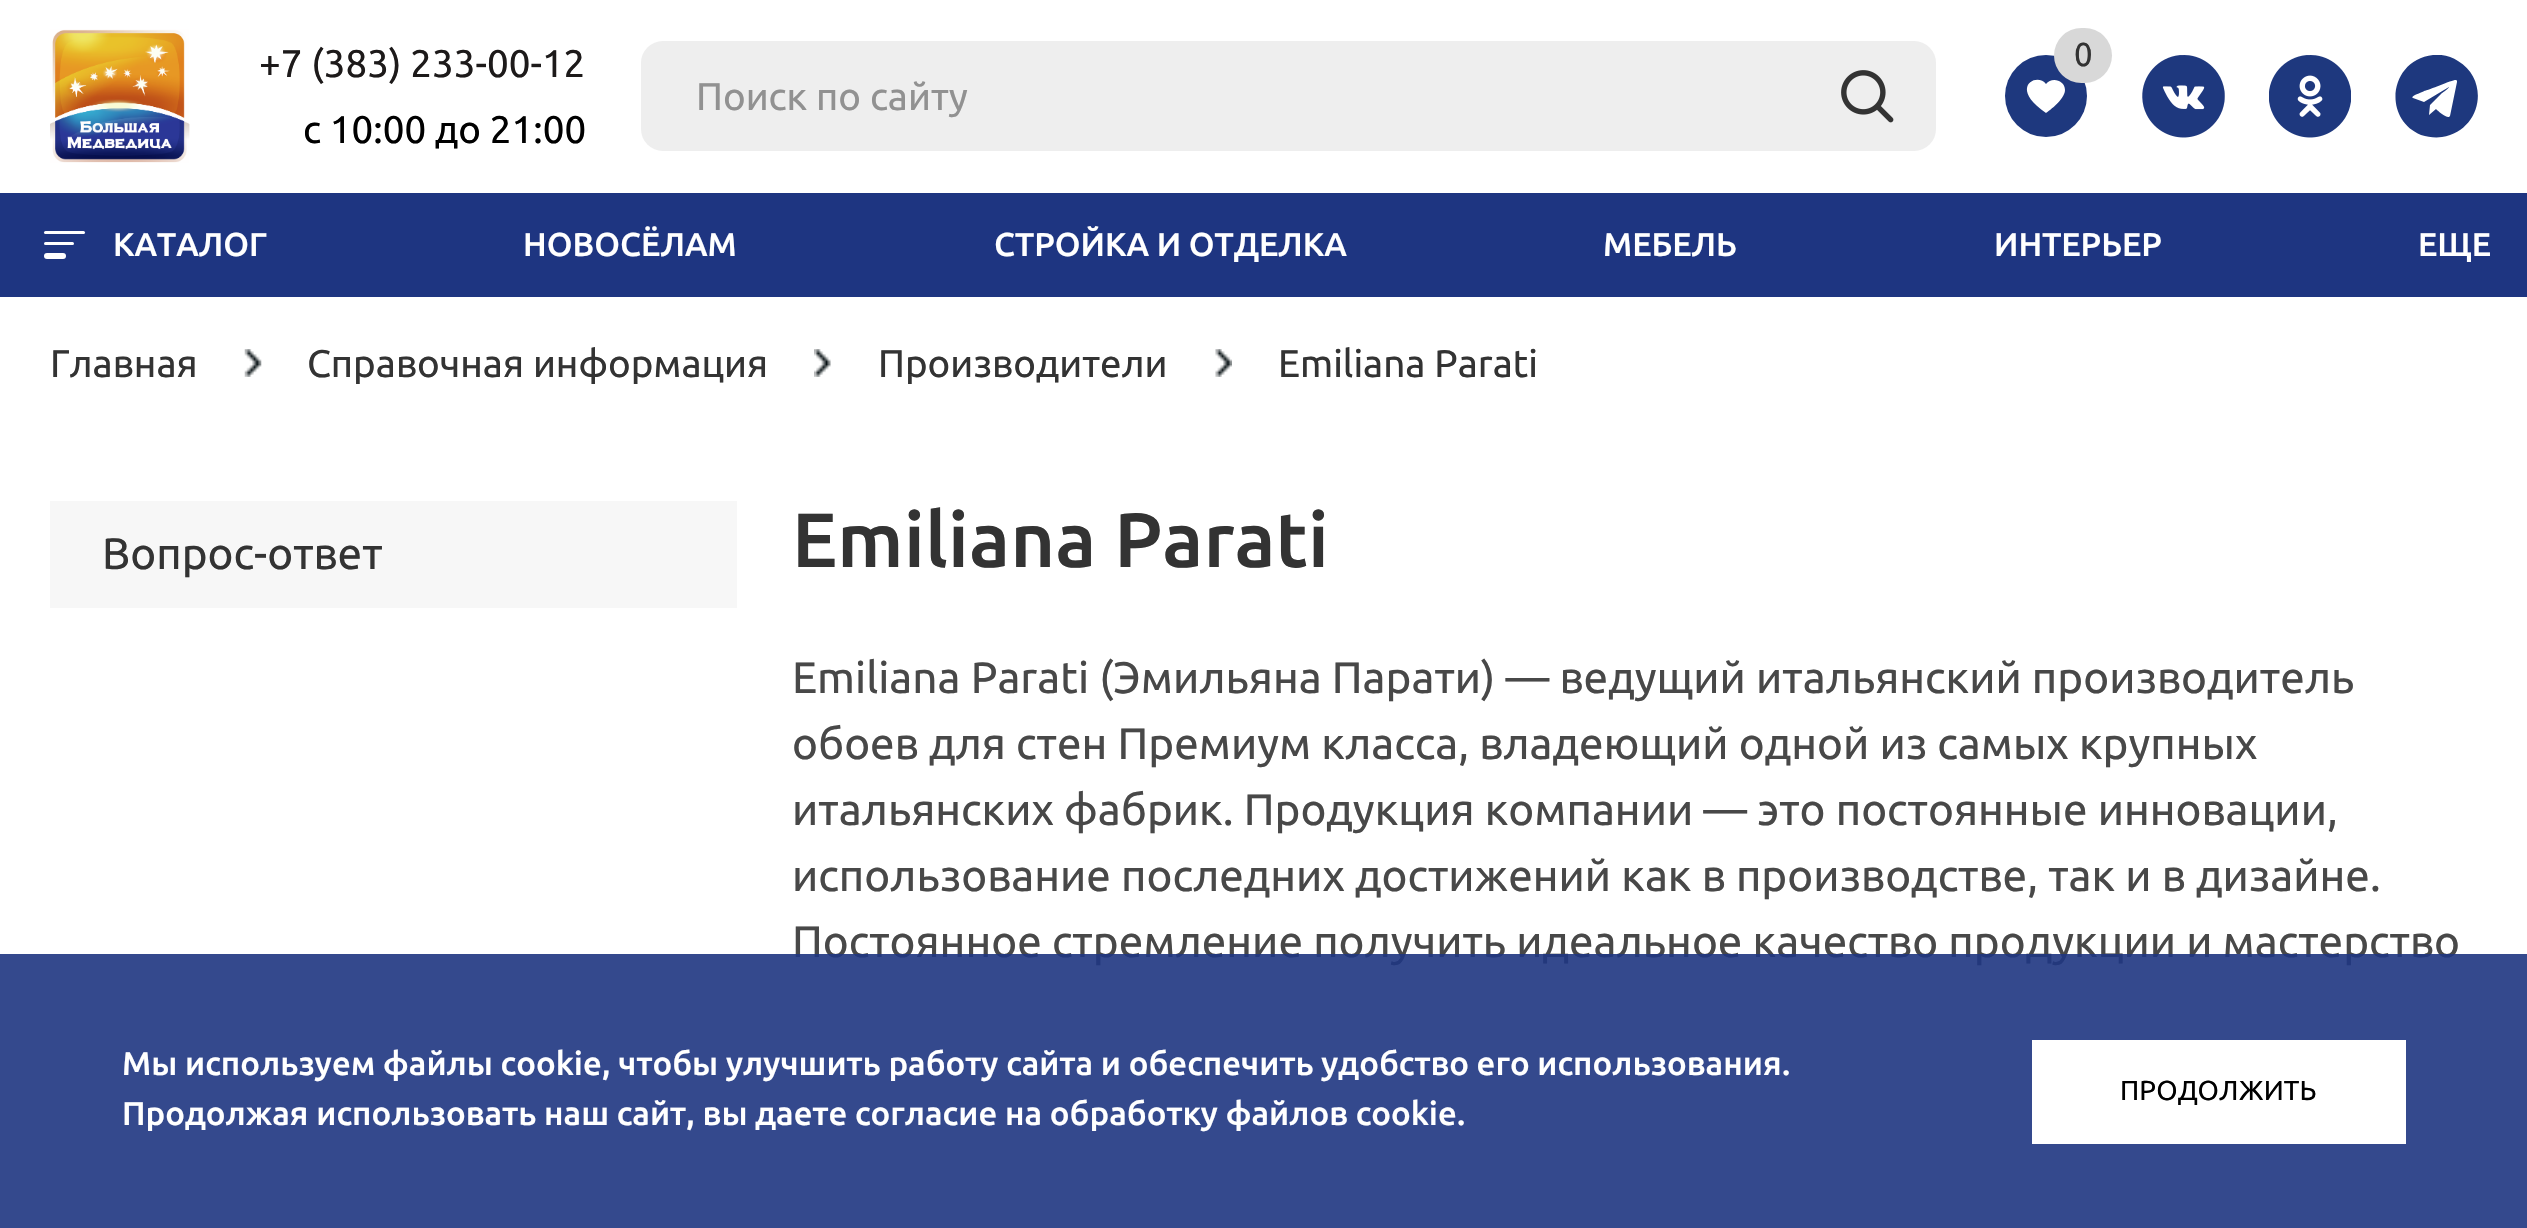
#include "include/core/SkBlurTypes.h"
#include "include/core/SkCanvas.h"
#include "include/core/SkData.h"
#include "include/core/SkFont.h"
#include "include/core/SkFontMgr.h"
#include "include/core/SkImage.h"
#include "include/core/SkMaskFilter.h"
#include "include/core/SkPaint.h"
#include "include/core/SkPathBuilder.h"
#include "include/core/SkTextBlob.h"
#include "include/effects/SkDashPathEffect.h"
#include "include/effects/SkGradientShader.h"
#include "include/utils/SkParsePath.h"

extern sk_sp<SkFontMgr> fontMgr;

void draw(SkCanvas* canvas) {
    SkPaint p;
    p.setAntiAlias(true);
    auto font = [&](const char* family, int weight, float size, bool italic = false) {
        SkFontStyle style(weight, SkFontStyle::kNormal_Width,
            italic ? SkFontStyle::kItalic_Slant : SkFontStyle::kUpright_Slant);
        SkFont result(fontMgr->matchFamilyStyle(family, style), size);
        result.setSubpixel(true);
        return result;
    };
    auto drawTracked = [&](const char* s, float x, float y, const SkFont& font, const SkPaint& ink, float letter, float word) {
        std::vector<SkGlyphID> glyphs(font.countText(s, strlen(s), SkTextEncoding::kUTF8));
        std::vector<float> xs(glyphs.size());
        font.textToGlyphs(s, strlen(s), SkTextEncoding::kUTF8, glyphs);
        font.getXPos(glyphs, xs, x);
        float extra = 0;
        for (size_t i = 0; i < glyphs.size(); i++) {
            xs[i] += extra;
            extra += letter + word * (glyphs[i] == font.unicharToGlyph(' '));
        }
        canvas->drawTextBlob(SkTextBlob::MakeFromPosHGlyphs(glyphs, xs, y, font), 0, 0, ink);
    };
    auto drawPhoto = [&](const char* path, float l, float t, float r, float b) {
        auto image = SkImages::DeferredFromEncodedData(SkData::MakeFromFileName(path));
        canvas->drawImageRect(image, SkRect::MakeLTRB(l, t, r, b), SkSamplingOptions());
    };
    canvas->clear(0xFFFFFFFF);
    drawPhoto("media/1.png", 50, 29, 190, 163);
    auto font1 = font("Ubuntu", 400, 38.5f);
    p.setColor(0xFF1D1A1A);
    canvas->drawString("+7 (383) 233-00-12", 259, 77, font1, p);
    p.setColor(0xFF000000);
    canvas->drawString("c 10:00 до 21:00", 303, 143, font1, p);
    p.setColor(0xFFEEEEEE);
    canvas->drawRoundRect(SkRect::MakeLTRB(641, 41, 1936, 151), 22, 22, p);
    p.setColor(0xFF919191);
    canvas->drawString("Поиск по сайту", 696, 110, font1, p);
    drawPhoto("media/2.png", 1841, 70, 1894, 123);
    p.setColor(0xFF1E387E);
    canvas->drawCircle(2046, 96, 41, p);
    p.setColor(0xFFFFFFFF);
    canvas->drawPath(SkPathBuilder().moveTo(2065, 90).cubicTo(2065, 80, 2051.5f, 76.5f, 2046, 84).cubicTo(2037, 72, 2008, 87.5f, 2046, 113).cubicTo(2046, 113, 2065, 100, 2065, 90).close().detach(), p);
    p.setColor(0xFFD8D8D8);
    canvas->drawRoundRect(SkRect::MakeLTRB(2054, 28, 2112, 83), 27.5f, 27.5f, p);
    auto font2 = font("Ubuntu", 400, 33);
    p.setColor(0xFF333333);
    canvas->drawString("0", 2074, 66, font2, p);
    drawPhoto("media/3.png", 2142, 55, 2225, 138);
    drawPhoto("media/4.png", 2269, 55, 2351, 138);
    canvas->save();
    canvas->clipRect(SkRect::MakeLTRB(2395, 55, 2478, 138));
    p.setColor(0xFF1E387E);
    canvas->drawPath(SkPathBuilder(SkPathFillType::kEvenOdd).moveTo(2433, 55).cubicTo(2389, 60, 2382, 119, 2421, 135).cubicTo(2428, 137, 2435, 138, 2442, 137).cubicTo(2481, 131, 2491, 81, 2458, 61).cubicTo(2451, 56, 2441, 54, 2433, 55).close().moveTo(2456, 80).cubicTo(2457, 80, 2457, 81, 2457, 82).lineTo(2450, 116).lineTo(2449, 117).cubicTo(2446, 118, 2438, 111, 2436, 109).lineTo(2429, 115).lineTo(2430, 105).lineTo(2442, 93).cubicTo(2443, 93, 2450, 87, 2449, 87).lineTo(2424, 102).lineTo(2413, 98).cubicTo(2409, 96, 2424, 92, 2424, 91).cubicTo(2429, 90, 2454, 79, 2456, 80).close().detach(), p);
    canvas->restore();
    p.setColor(0xFF1E3581);
    canvas->drawRect(SkRect::MakeLTRB(0, 193, 2527, 297), p);
    p.setColor(0xFFFFFFFF);
    canvas->drawRoundRect(SkRect::MakeLTRB(44, 242, 74, 245), 1.5f, 1.5f, p);
    canvas->drawRoundRect(SkRect::MakeLTRB(44, 231, 85, 234), 1.5f, 1.5f, p);
    canvas->drawRoundRect(SkRect::MakeLTRB(44, 253, 66, 259), 3, 3, p);
    auto font3 = font("Ubuntu", 500, 33);
    {
        const struct { const char* s; float x, y; } items[] = {
            {"КАТАЛОГ", 113, 256},
            {"НОВОСЁЛАМ", 523, 256},
            {"СТРОЙКА И ОТДЕЛКА", 994, 256},
            {"МЕБЕЛЬ", 1603, 256},
            {"ИНТЕРЬЕР", 1994, 256},
            {"ЕЩЕ", 2418, 256},
        };
        for (auto [s, x, y] : items) {
            canvas->drawString(s, x, y, font3, p);
        }
    }
    p.setColor(0xFF333333);
    canvas->drawString("Главная", 50, 377, font1, p);
    drawPhoto("media/5.png", 244, 349, 262, 377);
    canvas->drawString("Справочная информация", 307, 377, font1, p);
    drawPhoto("media/6.png", 814, 349, 831, 377);
    canvas->drawString("Производители", 878, 377, font1, p);
    drawPhoto("media/7.png", 1215, 349, 1232, 377);
    canvas->drawString("Emiliana Parati", 1278, 377, font1, p);
    p.setColor(0xFFF7F7F7);
    canvas->drawRect(SkRect::MakeLTRB(50, 501, 737, 608), p);
    auto font4 = font("Ubuntu", 400, 44);
    p.setColor(0xFF333333);
    canvas->drawString("Вопрос-ответ", 102, 569, font4, p);
    auto font5 = font("Ubuntu", 500, 77);
    canvas->drawString("Emiliana Parati", 792, 567, font5, p);
    p.setColor(0xFF484848);
    {
        const struct { const char* s; float x, y; } items[] = {
            {"Emiliana Parati (Эмильяна Парати) — ведущий итальянский производитель", 792, 693},
            {"обоев для стен Премиум класса, владеющий одной из самых крупных", 792, 759},
            {"итальянских фабрик. Продукция компании — это постоянные инновации,", 792, 825},
            {"использование последних достижений как в производстве, так и в дизайне.", 792, 891},
            {"Постоянное стремление получить идеальное качество продукции и мастерство", 792, 957},
        };
        for (auto [s, x, y] : items) {
            canvas->drawString(s, x, y, font4, p);
        }
    }
    p.setColor(0xE61E3581);
    canvas->drawRect(SkRect::MakeLTRB(0, 954, 2527, 1228), p);
    p.setColor(0xFFFFFFFF);
    canvas->drawString("Мы используем файлы cookie, чтобы улучшить работу сайта и обеспечить удобство его использования.", 122, 1075, font3, p);
    canvas->drawString("Продолжая использовать наш сайт, вы даете согласие на обработку файлов cookie.", 122, 1125, font3, p);
    canvas->drawRect(SkRect::MakeLTRB(2032, 1040, 2406, 1144), p);
    auto font6 = font("Ubuntu", 400, 27.5f);
    p.setColor(0xFF000000);
    drawTracked("ПРОДОЛЖИТЬ", 2120, 1100, font6, p, 0.1f, 0);
}
